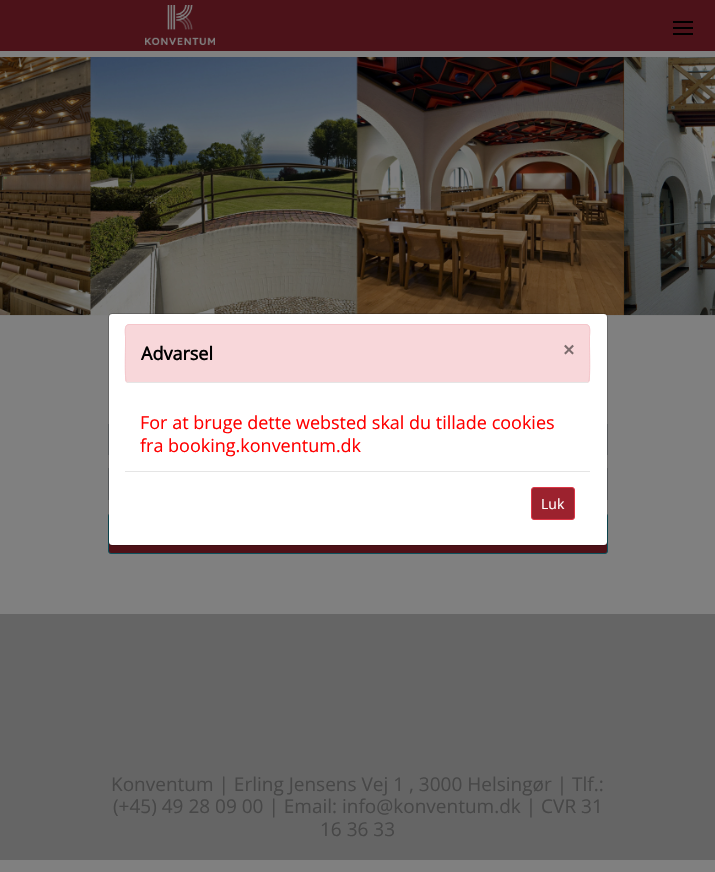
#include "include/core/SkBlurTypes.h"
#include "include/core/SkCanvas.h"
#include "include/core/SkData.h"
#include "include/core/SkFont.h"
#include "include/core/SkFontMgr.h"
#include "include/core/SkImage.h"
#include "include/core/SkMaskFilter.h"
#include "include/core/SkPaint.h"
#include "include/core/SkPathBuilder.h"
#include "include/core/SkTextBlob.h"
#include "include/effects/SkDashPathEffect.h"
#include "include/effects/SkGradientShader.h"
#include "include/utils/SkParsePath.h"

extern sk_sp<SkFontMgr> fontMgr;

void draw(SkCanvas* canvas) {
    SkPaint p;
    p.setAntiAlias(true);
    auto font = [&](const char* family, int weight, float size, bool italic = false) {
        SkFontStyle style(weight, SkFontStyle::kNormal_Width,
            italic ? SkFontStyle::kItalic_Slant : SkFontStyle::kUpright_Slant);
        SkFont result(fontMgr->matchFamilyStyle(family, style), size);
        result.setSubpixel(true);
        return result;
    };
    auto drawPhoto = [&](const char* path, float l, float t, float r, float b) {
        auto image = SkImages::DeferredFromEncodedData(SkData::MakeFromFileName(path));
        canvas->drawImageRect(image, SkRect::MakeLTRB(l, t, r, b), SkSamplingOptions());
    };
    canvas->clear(0xFF808080);
    {
        const struct { float l, t, r, b; SkColor color; } items[] = {
            {0, 0, 715, 51, 0xFF4C1219},
            {673, 21, 693, 23, 0xFF000000},
            {673, 27, 693, 29, 0xFF000000},
            {673, 33, 693, 35, 0xFF000000},
        };
        for (auto [l, t, r, b, color] : items) {
            p.setColor(color);
            canvas->drawRect(SkRect::MakeLTRB(l, t, r, b), p);
        }
    }
    drawPhoto("media/1.png", 145, 5, 215, 45);
    drawPhoto("media/2.png", 0, 57, 715, 316);
    p.setStyle(SkPaint::kStroke_Style);
    p.setStrokeWidth(1);
    p.setColor(0xFF676A6D);
    canvas->drawRect(SkRect::MakeLTRB(108.5f, 424.5f, 607.5f, 454.5f), p);
    canvas->drawRect(SkRect::MakeLTRB(108.5f, 468.5f, 607.5f, 499.5f), p);
    p.setStyle(SkPaint::kFill_Style);
    p.setColor(0xFF4E1117);
    canvas->drawRoundRect(SkRect::MakeLTRB(108.5f, 513.5f, 607.5f, 553.5f), 2.5f, 2.5f, p);
    p.setStyle(SkPaint::kStroke_Style);
    p.setColor(0xFF0C515C);
    canvas->drawRoundRect(SkRect::MakeLTRB(108.5f, 513.5f, 607.5f, 553.5f), 2.5f, 2.5f, p);
    p.setStyle(SkPaint::kFill_Style);
    p.setColor(0xFFFFFFFF);
    canvas->drawRoundRect(SkRect::MakeLTRB(109, 314, 607, 545), 3, 3, p);
    p.setStyle(SkPaint::kStroke_Style);
    p.setColor(0x33000000);
    canvas->drawRoundRect(SkRect::MakeLTRB(108.5f, 313.5f, 607.5f, 545.5f), 3.5f, 3.5f, p);
    p.setStyle(SkPaint::kFill_Style);
    p.setColor(0xFFF8D7DA);
    canvas->drawPath(SkPathBuilder().moveTo(129, 324).lineTo(586, 324).cubicTo(588, 324, 590, 326, 590, 328).lineTo(590, 380).cubicTo(590, 381.5f, 588.5f, 383, 587, 383).lineTo(128, 383).cubicTo(126.5f, 383, 125, 381.5f, 125, 380).lineTo(125, 328).cubicTo(125, 326, 127, 324, 129, 324).close().detach(), p);
    p.setStyle(SkPaint::kStroke_Style);
    p.setColor(0xFFE5E5E5);
    canvas->drawPath(SkPathBuilder().moveTo(588.5f, 381.5f).lineTo(587, 382.5f).lineTo(128, 382.5f).lineTo(126.5f, 381.5f).detach(), p);
    p.setColor(0xFFF5C6CB);
    canvas->drawPath(SkPathBuilder().moveTo(126.5f, 381.5f).cubicTo(124.5f, 379.5f, 125.5f, 350, 125.5f, 345).lineTo(125.5f, 336.5f).cubicTo(125.5f, 334.5f, 123.5f, 324.5f, 129, 324.5f).lineTo(586, 324.5f).cubicTo(591.5f, 324.5f, 589.5f, 334.5f, 589.5f, 336.5f).lineTo(589.5f, 345).cubicTo(589.5f, 350, 590.5f, 379.5f, 588.5f, 381.5f).detach(), p);
    auto font1 = font("Open Sans", 700, 18);
    p.setStyle(SkPaint::kFill_Style);
    p.setColor(0xFF000000);
    canvas->drawString("Advarsel", 141, 360, font1, p);
    auto font2 = font("Open Sans", 700, 20);
    p.setColor(0xFF7C6C6D);
    canvas->drawString("×", 563, 357, font2, p);
    auto font3 = font("Open Sans", 400, 18);
    p.setColor(0xFFFF0000);
    canvas->drawString("For at bruge dette websted skal du tillade cookies", 140, 429, font3, p);
    canvas->drawString("fra booking.konventum.dk", 140, 452, font3, p);
    p.setColor(0xFFE5E5E5);
    canvas->drawRect(SkRect::MakeLTRB(125, 471, 590, 472), p);
    p.setColor(0xFF9C222E);
    canvas->drawRoundRect(SkRect::MakeLTRB(531.5f, 487.5f, 574.5f, 519.5f), 2.5f, 2.5f, p);
    p.setStyle(SkPaint::kStroke_Style);
    p.setColor(0xFFDC3545);
    canvas->drawRoundRect(SkRect::MakeLTRB(531.5f, 487.5f, 574.5f, 519.5f), 2.5f, 2.5f, p);
    auto font4 = font("Open Sans", 400, 14);
    p.setStyle(SkPaint::kFill_Style);
    p.setColor(0xFFFFFFFF);
    canvas->drawString("Luk", 541, 509, font4, p);
    p.setColor(0xFF656565);
    canvas->drawRect(SkRect::MakeLTRB(0, 614, 715, 860), p);
    auto font5 = font("Open Sans", 400, 19);
    p.setColor(0xFF474747);
    {
        const struct { const char* s; float x, y; } items[] = {
            {"Konventum | Erling Jensens Vej 1 , 3000 Helsingør | Tlf.:", 111, 791},
            {"(+45) 49 28 09 00 | Email: info@konventum.dk | CVR 31", 113, 813},
            {"16 36 33", 320, 836},
        };
        for (auto [s, x, y] : items) {
            canvas->drawString(s, x, y, font5, p);
        }
    }
}
